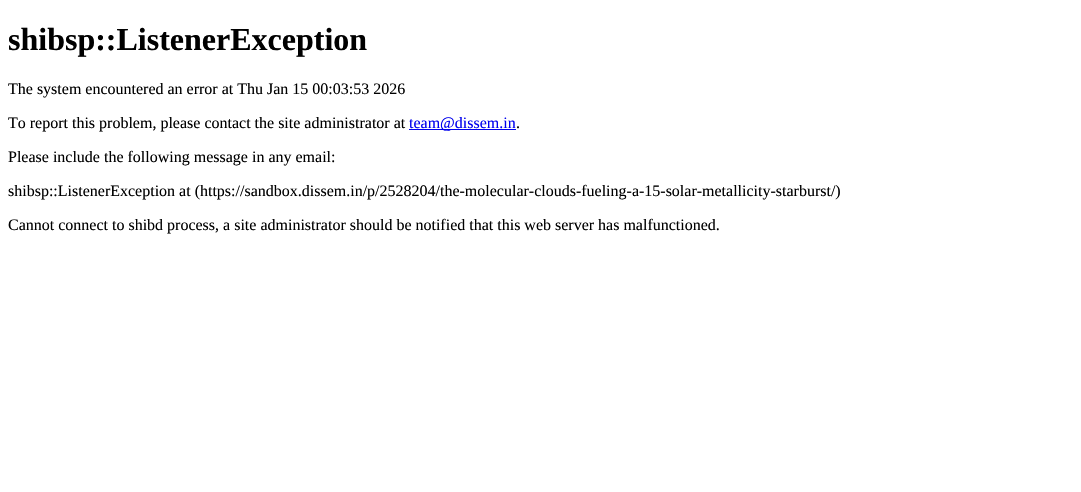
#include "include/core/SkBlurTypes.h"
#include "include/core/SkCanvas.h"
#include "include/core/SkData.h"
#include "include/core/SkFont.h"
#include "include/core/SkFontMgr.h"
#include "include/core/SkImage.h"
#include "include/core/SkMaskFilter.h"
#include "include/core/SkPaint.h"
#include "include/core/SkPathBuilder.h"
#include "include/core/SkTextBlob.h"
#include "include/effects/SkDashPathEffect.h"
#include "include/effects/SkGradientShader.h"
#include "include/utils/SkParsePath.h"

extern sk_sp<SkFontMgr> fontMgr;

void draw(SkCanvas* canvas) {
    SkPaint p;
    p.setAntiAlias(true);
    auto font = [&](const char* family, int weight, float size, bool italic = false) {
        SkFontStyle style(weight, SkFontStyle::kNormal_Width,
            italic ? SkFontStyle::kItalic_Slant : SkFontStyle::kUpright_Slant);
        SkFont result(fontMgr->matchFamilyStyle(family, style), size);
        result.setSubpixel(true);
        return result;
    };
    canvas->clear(0xFFFFFFFF);
    auto font1 = font("Liberation Serif", 700, 32);
    p.setColor(0xFF000000);
    canvas->drawString("shibsp::ListenerException", 8, 50, font1, p);
    auto font2 = font("Liberation Serif", 400, 16);
    canvas->drawString("The system encountered an error at Thu Jan 15 00:03:53 2026", 8, 94, font2, p);
    canvas->drawString("To report this problem, please contact the site administrator at", 8, 128, font2, p);
    p.setColor(0xFF0000EE);
    canvas->drawRect(SkRect::MakeLTRB(409, 129, 516, 130), p);
    canvas->drawString("team@dissem.in", 409, 128, font2, p);
    p.setColor(0xFF000000);
    {
        const struct { const char* s; float x, y; } items[] = {
            {".", 516, 128},
            {"Please include the following message in any email:", 8, 162},
            {"shibsp::ListenerException at (https://sandbox.dissem.in/p/2528204/the-molecular-clouds-fueling-a-15-solar-metallicity-starburst/)", 8, 196},
            {"Cannot connect to shibd process, a site administrator should be notified that this web server has malfunctioned.", 8, 230},
        };
        for (auto [s, x, y] : items) {
            canvas->drawString(s, x, y, font2, p);
        }
    }
}
